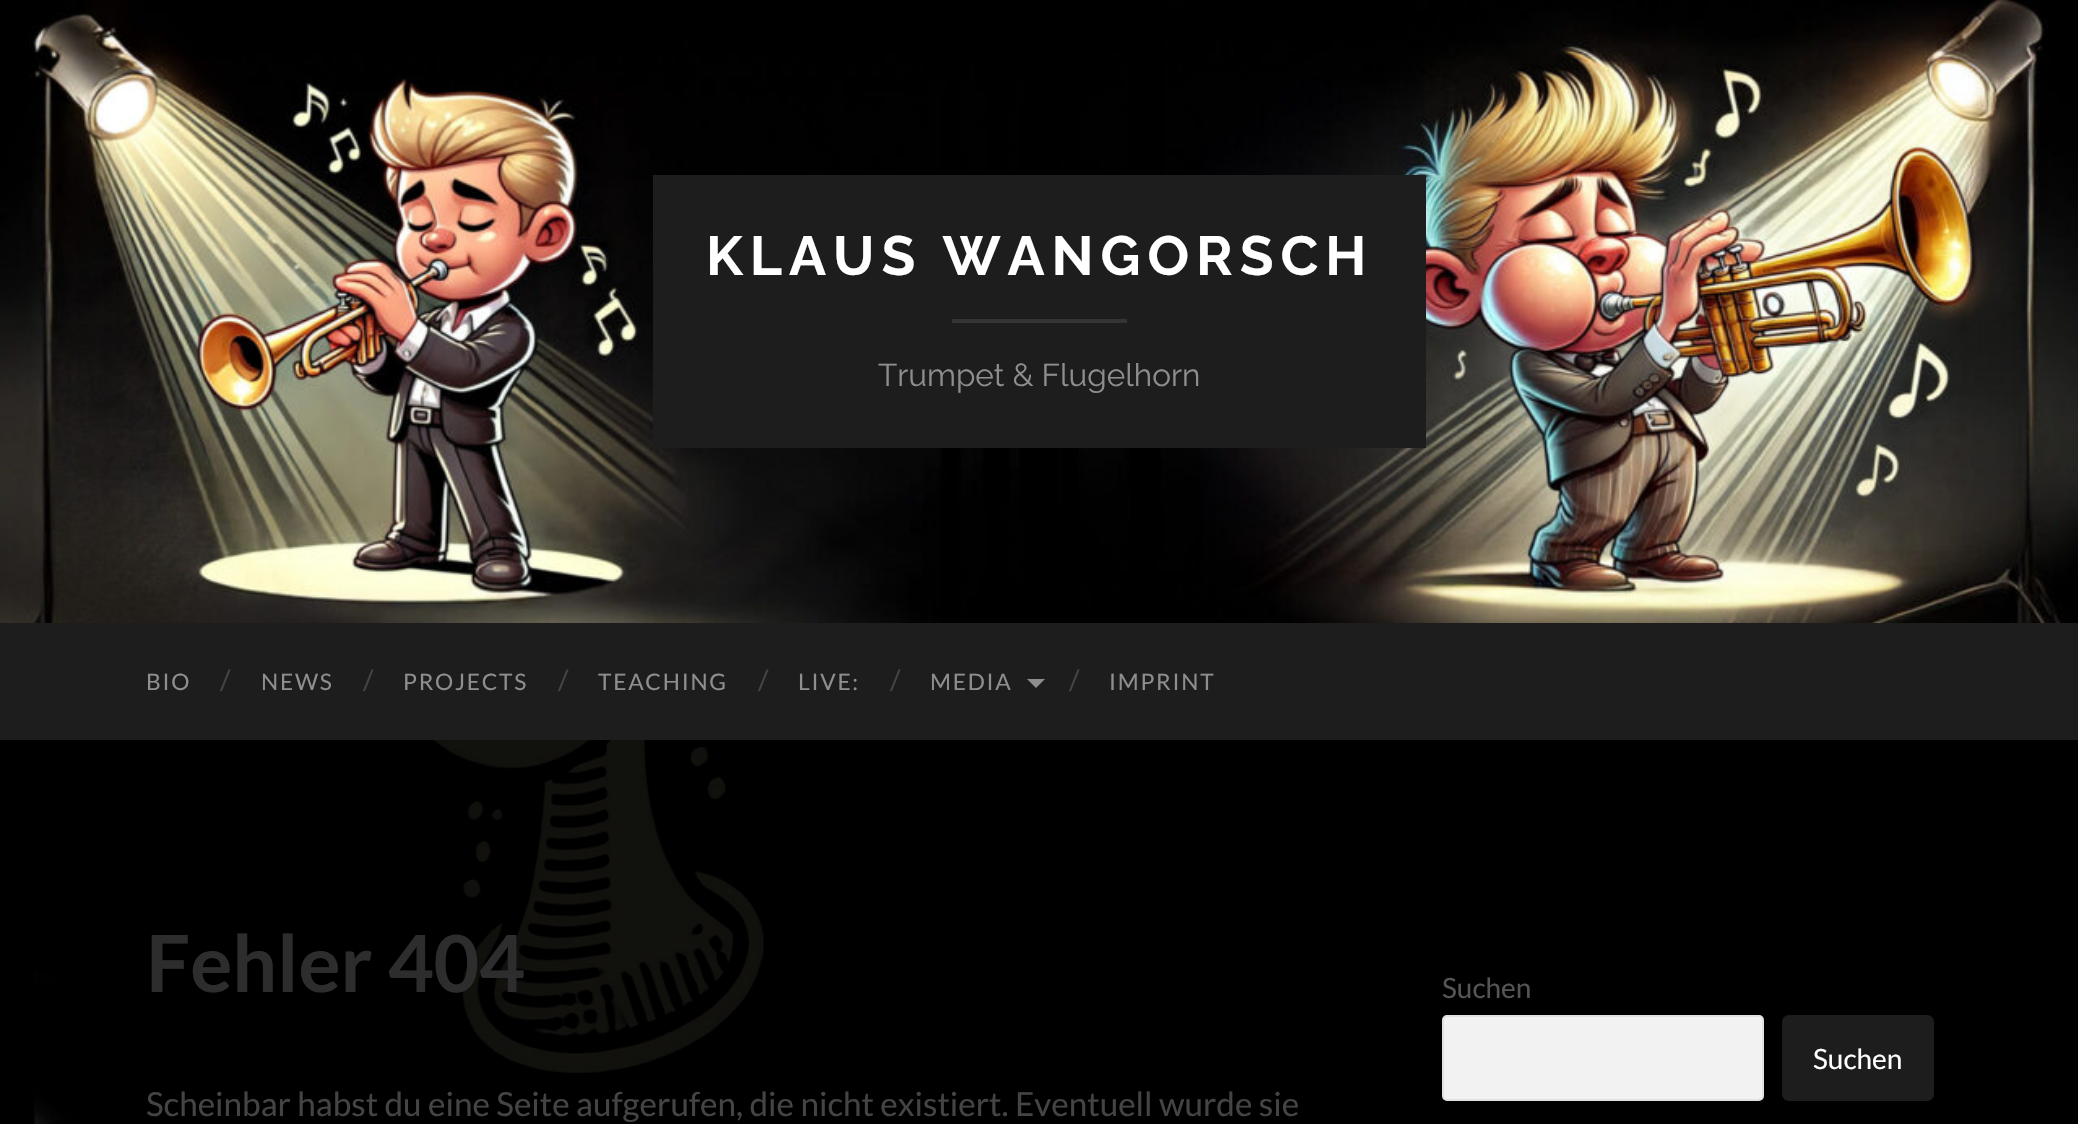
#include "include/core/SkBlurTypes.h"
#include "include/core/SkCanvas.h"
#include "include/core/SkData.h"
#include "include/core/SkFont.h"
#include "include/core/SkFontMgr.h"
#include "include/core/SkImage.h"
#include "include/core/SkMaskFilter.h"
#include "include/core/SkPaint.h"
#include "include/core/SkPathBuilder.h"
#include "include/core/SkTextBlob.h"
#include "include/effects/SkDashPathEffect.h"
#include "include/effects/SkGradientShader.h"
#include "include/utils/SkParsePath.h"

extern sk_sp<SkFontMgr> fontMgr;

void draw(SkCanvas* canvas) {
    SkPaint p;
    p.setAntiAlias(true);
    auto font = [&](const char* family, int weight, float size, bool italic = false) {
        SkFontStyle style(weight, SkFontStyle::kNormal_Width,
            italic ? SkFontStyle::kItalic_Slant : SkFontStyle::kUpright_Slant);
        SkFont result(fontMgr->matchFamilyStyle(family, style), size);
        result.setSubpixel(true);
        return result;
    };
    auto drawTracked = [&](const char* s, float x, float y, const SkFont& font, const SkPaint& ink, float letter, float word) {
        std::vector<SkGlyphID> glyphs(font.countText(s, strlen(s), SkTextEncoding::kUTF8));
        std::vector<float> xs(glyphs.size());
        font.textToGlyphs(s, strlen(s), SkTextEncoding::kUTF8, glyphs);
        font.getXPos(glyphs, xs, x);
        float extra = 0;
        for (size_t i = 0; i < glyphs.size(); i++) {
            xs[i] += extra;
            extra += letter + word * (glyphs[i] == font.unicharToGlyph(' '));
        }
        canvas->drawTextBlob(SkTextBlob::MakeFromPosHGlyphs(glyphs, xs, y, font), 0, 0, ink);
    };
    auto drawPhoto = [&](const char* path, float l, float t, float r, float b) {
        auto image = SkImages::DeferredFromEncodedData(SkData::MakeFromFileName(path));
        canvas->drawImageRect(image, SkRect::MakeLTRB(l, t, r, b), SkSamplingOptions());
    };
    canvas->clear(0xFF000000);
    drawPhoto("media/1.png", 34, 740, 764, 1124);
    drawPhoto("media/2.png", 0, 0, 2078, 623);
    p.setColor(0xFF1D1D1D);
    canvas->drawRect(SkRect::MakeLTRB(653, 175, 1426, 448), p);
    auto font1 = font("Raleway", 100, 55.1f);
    p.setColor(0xFFFFFFFF);
    drawTracked("KLAUS WANGORSCH", 706, 275, font1, p, 7, 0);
    p.setColor(0xFF343434);
    canvas->drawRect(SkRect::MakeLTRB(952, 319, 1127, 323), p);
    auto font2 = font("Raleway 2", 100, 31.5f);
    p.setColor(0xFF8E8E8E);
    canvas->drawString("Trumpet & Flugelhorn", 878, 386, font2, p);
    p.setColor(0xFF1D1D1D);
    canvas->drawRect(SkRect::MakeLTRB(0, 623, 2078, 740), p);
    auto font3 = font("Lato", 400, 22.75f);
    p.setColor(0xFF8E8E8E);
    drawTracked("BIO", 146, 690, font3, p, 1.75f, 0);
    auto font4 = font("Lato", 400, 28);
    p.setColor(0xFF444444);
    canvas->drawString("/", 220, 690, font4, p);
    p.setColor(0xFF8E8E8E);
    drawTracked("NEWS", 261, 690, font3, p, 1.75f, 0);
    p.setColor(0xFF444444);
    canvas->drawString("/", 363, 690, font4, p);
    p.setColor(0xFF8E8E8E);
    drawTracked("PROJECTS", 403, 690, font3, p, 1.75f, 0);
    p.setColor(0xFF444444);
    canvas->drawString("/", 558, 690, font4, p);
    p.setColor(0xFF8E8E8E);
    drawTracked("TEACHING", 598, 690, font3, p, 1.75f, 0);
    p.setColor(0xFF444444);
    canvas->drawString("/", 758, 690, font4, p);
    p.setColor(0xFF8E8E8E);
    drawTracked("LIVE:", 798, 690, font3, p, 1.75f, 0);
    p.setColor(0xFF444444);
    canvas->drawString("/", 890, 690, font4, p);
    p.setColor(0xFF8E8E8E);
    drawTracked("MEDIA", 930, 690, font3, p, 1.75f, 0);
    canvas->drawPath(SkPathBuilder().moveTo(1027, 679).lineTo(1045, 679).lineTo(1036, 688).close().detach(), p);
    p.setColor(0xFF444444);
    canvas->drawString("/", 1069, 690, font4, p);
    p.setColor(0xFF8E8E8E);
    drawTracked("IMPRINT", 1109, 690, font3, p, 1.75f, 0);
    auto font5 = font("Lato", 700, 78.75f);
    p.setColor(0xFF2D2D2D);
    canvas->drawString("Fehler 404", 146, 992, font5, p);
    auto font6 = font("Lato", 400, 33.25f);
    p.setColor(0xFF444444);
    canvas->drawString("Scheinbar habst du eine Seite aufgerufen, die nicht existiert. Eventuell wurde sie", 146, 1116, font6, p);
    p.setColor(0xFF555555);
    canvas->drawString("Suchen", 1442, 998, font4, p);
    p.setColor(0xFFF2F2F2);
    canvas->drawRoundRect(SkRect::MakeLTRB(1443, 1016, 1763, 1100), 4, 4, p);
    p.setStyle(SkPaint::kStroke_Style);
    p.setStrokeWidth(2);
    p.setColor(0xFFE1E1E3);
    canvas->drawRoundRect(SkRect::MakeLTRB(1443, 1016, 1763, 1100), 4, 4, p);
    p.setStyle(SkPaint::kFill_Style);
    p.setColor(0xFF1D1D1D);
    canvas->drawRoundRect(SkRect::MakeLTRB(1782, 1015, 1934, 1101), 7, 7, p);
    p.setColor(0xFFFFFFFF);
    canvas->drawString("Suchen", 1813, 1069, font4, p);
}
